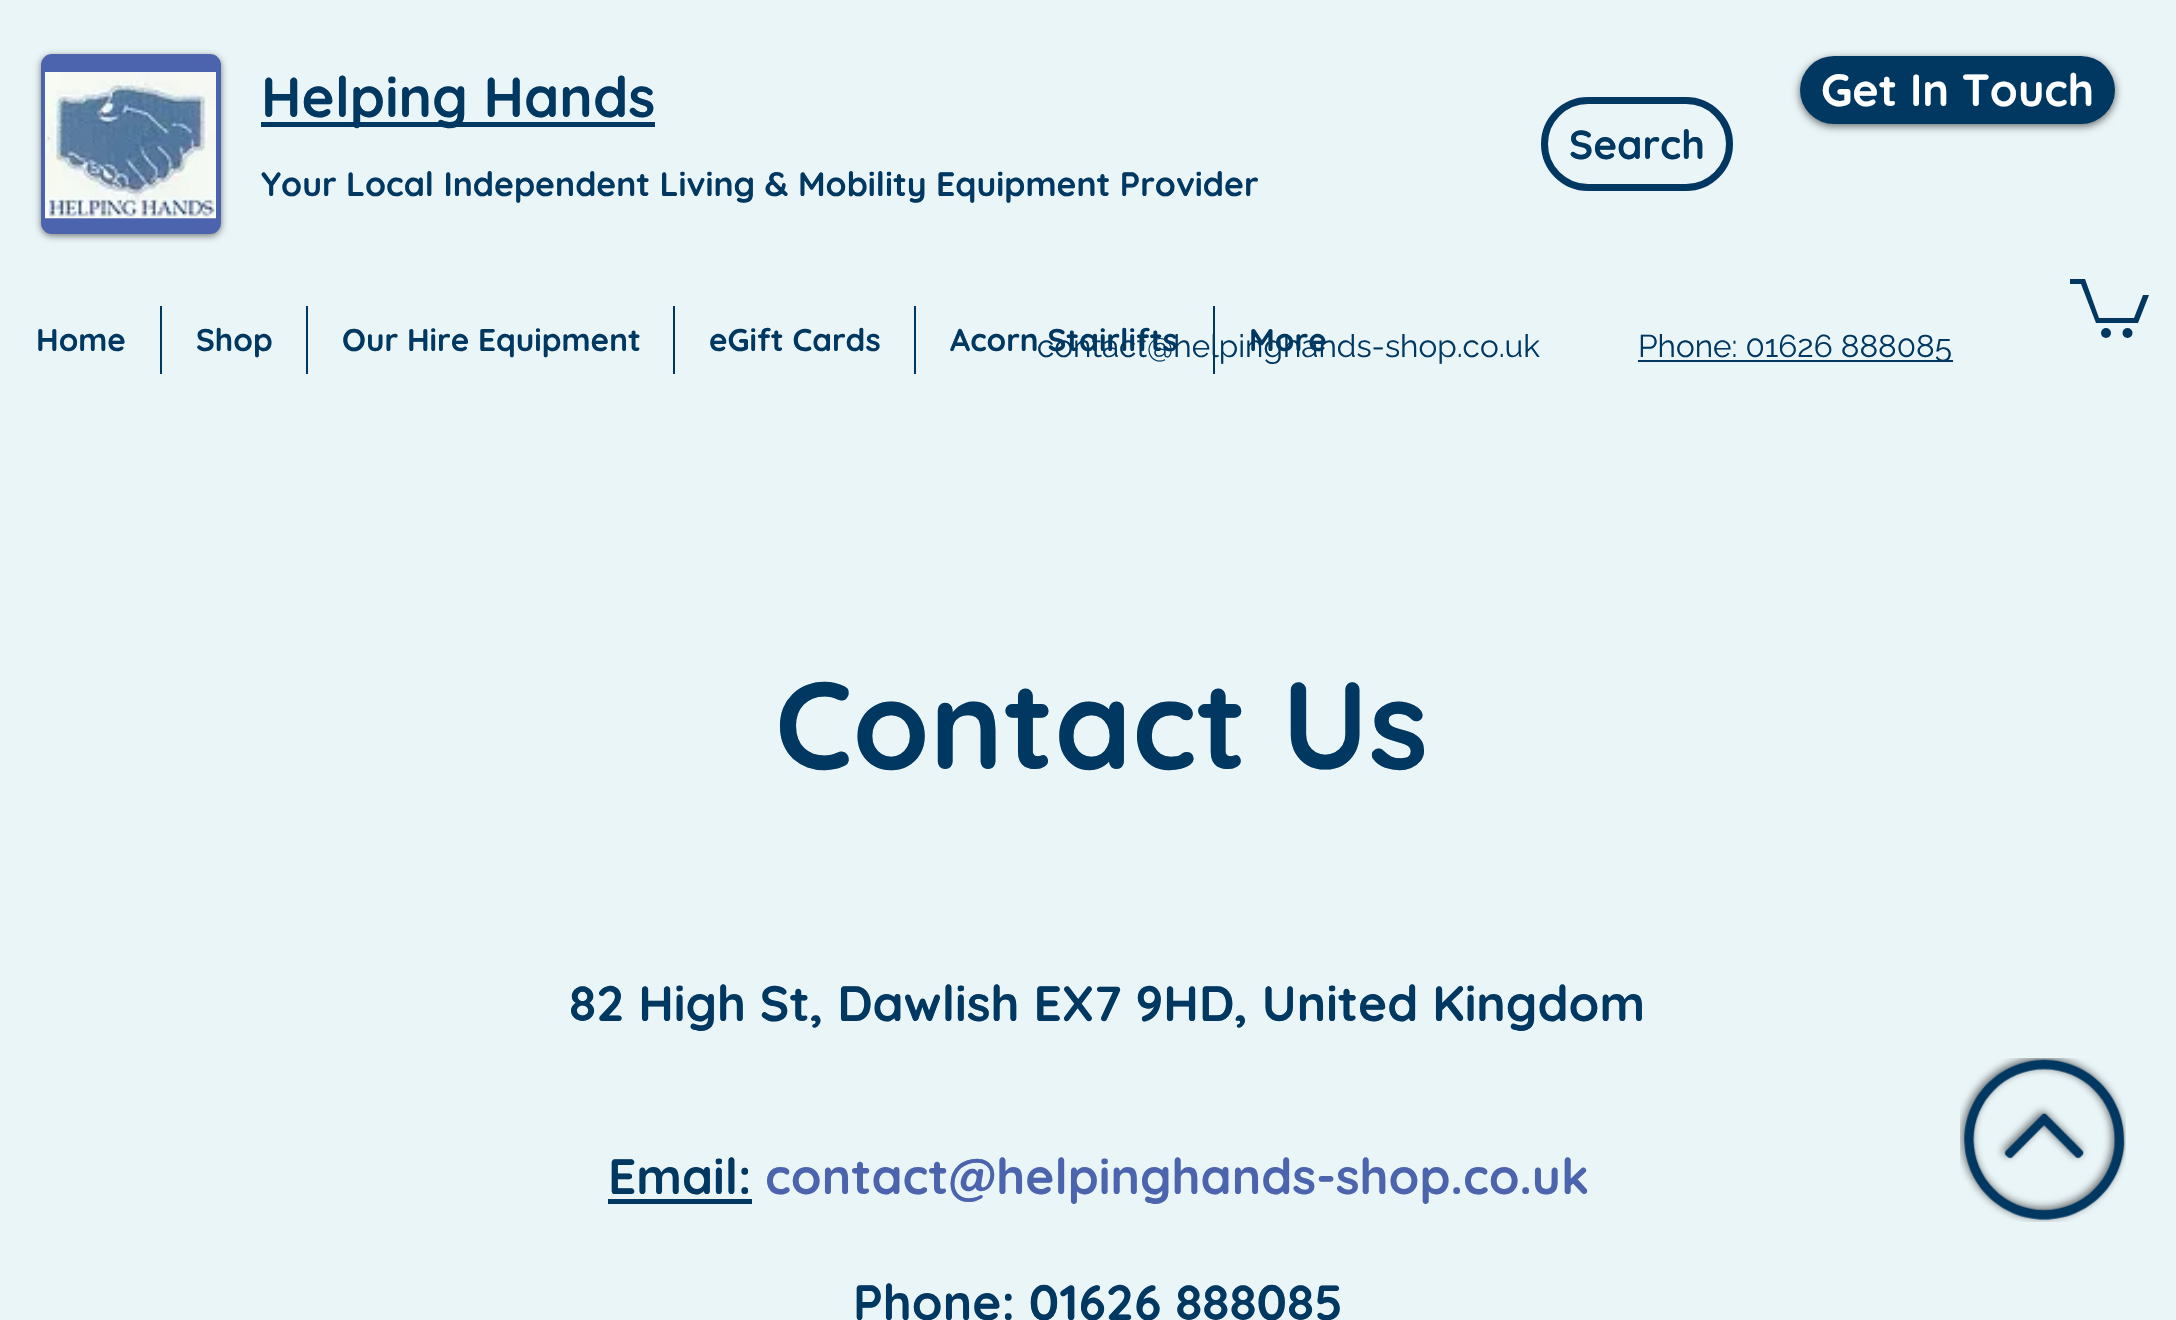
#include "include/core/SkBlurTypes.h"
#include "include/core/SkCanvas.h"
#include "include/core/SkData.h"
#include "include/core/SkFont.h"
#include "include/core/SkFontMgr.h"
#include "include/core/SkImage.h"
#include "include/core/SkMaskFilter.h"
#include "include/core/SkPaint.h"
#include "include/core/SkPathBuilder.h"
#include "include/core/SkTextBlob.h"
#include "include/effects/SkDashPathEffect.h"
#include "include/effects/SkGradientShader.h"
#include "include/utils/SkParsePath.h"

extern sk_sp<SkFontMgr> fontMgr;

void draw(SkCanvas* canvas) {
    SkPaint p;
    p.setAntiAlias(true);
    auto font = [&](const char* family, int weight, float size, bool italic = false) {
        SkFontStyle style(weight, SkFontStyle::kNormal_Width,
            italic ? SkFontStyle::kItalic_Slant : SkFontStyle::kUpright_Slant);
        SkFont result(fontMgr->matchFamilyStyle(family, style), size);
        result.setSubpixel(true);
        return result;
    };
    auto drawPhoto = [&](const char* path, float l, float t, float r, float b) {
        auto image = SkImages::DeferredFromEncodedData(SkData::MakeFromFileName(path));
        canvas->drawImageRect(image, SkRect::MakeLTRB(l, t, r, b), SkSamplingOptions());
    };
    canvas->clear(0xFFEAF5F7);
    p.setColor(0x80000000);
    p.setMaskFilter(SkMaskFilter::MakeBlur(kNormal_SkBlurStyle, 3.5f));
    canvas->drawRoundRect(SkRect::MakeLTRB(41, 56, 221, 236), 11, 11, p);
    p.setMaskFilter(nullptr);
    p.setColor(0xFF4B64AD);
    canvas->drawRoundRect(SkRect::MakeLTRB(43.5f, 56.5f, 218.5f, 231.5f), 8.5f, 8.5f, p);
    p.setStyle(SkPaint::kStroke_Style);
    p.setStrokeWidth(5);
    canvas->drawRoundRect(SkRect::MakeLTRB(43.5f, 56.5f, 218.5f, 231.5f), 8.5f, 8.5f, p);
    drawPhoto("media/1.png", 45, 72, 216, 219);
    p.setStyle(SkPaint::kFill_Style);
    p.setColor(0xFF003862);
    canvas->drawRect(SkRect::MakeLTRB(261, 122, 655, 127), p);
    auto font1 = font("Quicksand", 700, 56.25f);
    canvas->drawString("Helping Hands", 261, 117, font1, p);
    auto font2 = font("Quicksand", 700, 33.75f);
    canvas->drawString("Your Local Independent Living & Mobility Equipment Provider", 261, 196, font2, p);
    p.setColor(0x99000000);
    p.setMaskFilter(SkMaskFilter::MakeBlur(kNormal_SkBlurStyle, 4.5f));
    canvas->drawRoundRect(SkRect::MakeLTRB(1800, 59, 2115, 126), 33.5f, 33.5f, p);
    p.setMaskFilter(nullptr);
    p.setColor(0xFF003862);
    canvas->drawRoundRect(SkRect::MakeLTRB(1800, 56, 2115, 124), 34, 34, p);
    auto font3 = font("Quicksand", 700, 45);
    p.setColor(0xFFFFFFFF);
    canvas->drawString("Get In Touch", 1821, 106, font3, p);
    p.setStyle(SkPaint::kStroke_Style);
    p.setStrokeWidth(7);
    p.setColor(0xFF003862);
    canvas->drawRoundRect(SkRect::MakeLTRB(1544.5f, 100.5f, 1729.5f, 187.5f), 43.5f, 43.5f, p);
    auto font4 = font("Quicksand", 700, 40.5f);
    p.setStyle(SkPaint::kFill_Style);
    canvas->drawString("Search", 1569, 159, font4, p);
    auto font5 = font("Quicksand", 700, 31.5f);
    canvas->drawString("Home", 36, 351, font5, p);
    canvas->drawRect(SkRect::MakeLTRB(160, 306, 162, 374), p);
    canvas->drawString("Shop", 196, 351, font5, p);
    canvas->drawRect(SkRect::MakeLTRB(306, 306, 308, 374), p);
    canvas->drawString("Our Hire Equipment", 342, 351, font5, p);
    canvas->drawRect(SkRect::MakeLTRB(673, 306, 675, 374), p);
    canvas->drawString("eGift Cards", 709, 351, font5, p);
    canvas->drawRect(SkRect::MakeLTRB(914, 306, 916, 374), p);
    canvas->drawString("Acorn Stairlifts", 950, 351, font5, p);
    canvas->drawRect(SkRect::MakeLTRB(1213, 306, 1215, 374), p);
    canvas->drawString("More", 1249, 351, font5, p);
    canvas->drawPath(SkPathBuilder().moveTo(2149, 295).lineTo(2138, 323).lineTo(2096, 323).lineTo(2081, 284).lineTo(2070, 284).lineTo(2070, 279).lineTo(2085, 279).lineTo(2099, 318).lineTo(2134, 318).lineTo(2143, 295).detach(), p);
    canvas->drawCircle(2127.5f, 333, 5, p);
    canvas->drawCircle(2106, 333, 5, p);
    auto font6 = font("Raleway", 400, 31.5f);
    canvas->drawString("contact@helpinghands-shop.co.uk", 1037, 357, font6, p);
    canvas->drawRect(SkRect::MakeLTRB(1638, 360, 1953, 362), p);
    canvas->drawString("Phone: 01626 888085", 1638, 357, font6, p);
    auto font7 = font("Quicksand", 700, 123.75f);
    canvas->drawString("Contact Us", 775, 769, font7, p);
    auto font8 = font("Quicksand", 700, 49.5f);
    canvas->drawString("82 High St, Dawlish EX7 9HD, United Kingdom", 569, 1021, font8, p);
    canvas->drawString("Email:", 608, 1194, font8, p);
    canvas->drawRect(SkRect::MakeLTRB(608, 1199, 752, 1204), p);
    p.setColor(0xFF4B64AD);
    canvas->drawString("contact@helpinghands-shop.co.uk", 765, 1194, font8, p);
    p.setColor(0xFF003862);
    canvas->drawString("Phone: 01626 888085", 853, 1320, font8, p);
    drawPhoto("media/2.png", 1960, 1058, 2126, 1222);
}
